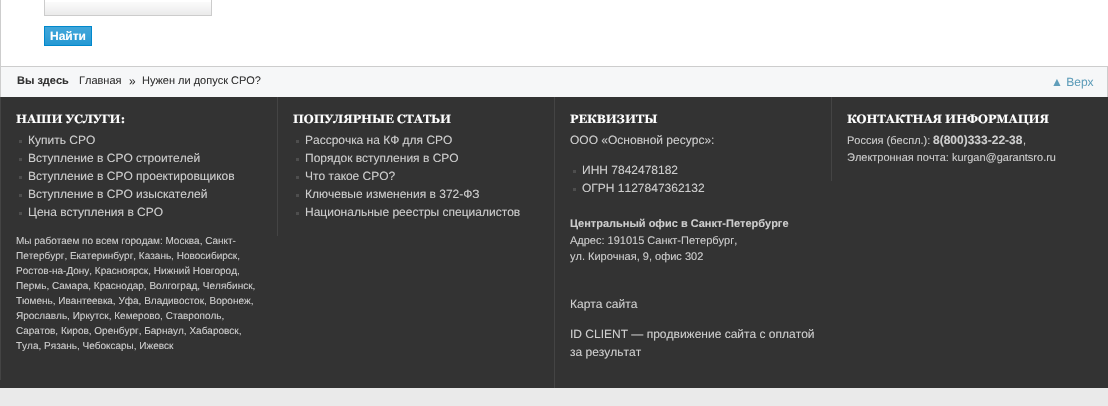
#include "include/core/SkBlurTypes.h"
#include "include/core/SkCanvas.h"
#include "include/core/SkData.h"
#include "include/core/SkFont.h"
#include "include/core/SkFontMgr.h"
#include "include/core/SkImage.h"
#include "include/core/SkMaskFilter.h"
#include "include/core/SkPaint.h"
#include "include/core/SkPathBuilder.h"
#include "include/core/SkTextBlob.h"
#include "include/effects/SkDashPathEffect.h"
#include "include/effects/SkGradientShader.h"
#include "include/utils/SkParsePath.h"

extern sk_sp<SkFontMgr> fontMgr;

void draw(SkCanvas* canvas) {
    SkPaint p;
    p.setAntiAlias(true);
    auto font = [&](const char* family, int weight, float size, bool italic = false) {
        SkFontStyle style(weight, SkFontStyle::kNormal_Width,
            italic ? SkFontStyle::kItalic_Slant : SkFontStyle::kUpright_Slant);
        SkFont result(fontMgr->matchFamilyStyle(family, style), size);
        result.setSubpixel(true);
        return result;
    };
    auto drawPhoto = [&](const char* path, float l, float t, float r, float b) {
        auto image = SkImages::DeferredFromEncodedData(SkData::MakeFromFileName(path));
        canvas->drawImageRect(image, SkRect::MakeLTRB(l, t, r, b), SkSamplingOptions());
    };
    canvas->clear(0xFFEAEAEA);
    p.setColor(0xFFFFFFFF);
    canvas->drawRect(SkRect::MakeLTRB(1, 0, 1108, 66), p);
    drawPhoto("media/1.png", 45, 2, 211, 15);
    p.setStyle(SkPaint::kStroke_Style);
    p.setStrokeWidth(1);
    p.setColor(0xFFCCCCCC);
    canvas->drawRect(SkRect::MakeLTRB(44.5f, -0.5f, 211.5f, 15.5f), p);
    drawPhoto("media/2.png", 45, 27, 91, 45);
    p.setColor(0xFF0088CC);
    canvas->drawRect(SkRect::MakeLTRB(44.5f, 26.5f, 91.5f, 45.5f), p);
    auto font1 = font("Liberation Sans", 700, 12);
    p.setStyle(SkPaint::kFill_Style);
    p.setColor(0xFFFFFFFF);
    canvas->drawString("Найти", 50, 40, font1, p);
    {
        const struct { float l, t, r, b; SkColor color; } items[] = {
            {1, 67, 1107, 97, 0xFFF6F7F8},
            {0, 66, 1108, 67, 0xFFCDCDCD},
            {1107, 66, 1108, 97, 0xFFCDCDCD},
            {0, 0, 1, 97, 0xFFCDCDCD},
        };
        for (auto [l, t, r, b, color] : items) {
            p.setColor(color);
            canvas->drawRect(SkRect::MakeLTRB(l, t, r, b), p);
        }
    }
    auto font2 = font("Liberation Sans", 700, 11);
    p.setColor(0xFF333333);
    canvas->drawString("Вы здесь", 17, 84, font2, p);
    auto font3 = font("Liberation Sans", 400, 11);
    canvas->drawString("Главная", 79, 84, font3, p);
    auto font4 = font("Liberation Sans", 400, 12);
    canvas->drawString("»", 129, 85, font4, p);
    canvas->drawString("Нужен ли допуск СРО?", 142, 84, font3, p);
    p.setColor(0xFF609EBA);
    canvas->drawString("▲ Верх", 1051, 86, font4, p);
    p.setColor(0xFF333333);
    canvas->drawRect(SkRect::MakeLTRB(0, 97, 1108, 388), p);
    p.setColor(0xFF444444);
    canvas->drawRect(SkRect::MakeLTRB(0, 97, 1, 380), p);
    auto font5 = font("Georgia", 700, 12);
    p.setColor(0xFFFFFFFF);
    canvas->drawString("НАШИ УСЛУГИ:", 16, 123, font5, p);
    p.setColor(0xFF4E4E4E);
    canvas->drawRect(SkRect::MakeLTRB(19, 140, 22, 143), p);
    p.setColor(0xFFCDCDCD);
    canvas->drawString("Купить СРО", 28, 144, font4, p);
    p.setColor(0xFF4E4E4E);
    canvas->drawRect(SkRect::MakeLTRB(19, 158, 22, 161), p);
    p.setColor(0xFFCDCDCD);
    canvas->drawString("Вступление в СРО строителей", 28, 162, font4, p);
    p.setColor(0xFF4E4E4E);
    canvas->drawRect(SkRect::MakeLTRB(19, 176, 22, 179), p);
    p.setColor(0xFFCDCDCD);
    canvas->drawString("Вступление в СРО проектировщиков", 28, 180, font4, p);
    p.setColor(0xFF4E4E4E);
    canvas->drawRect(SkRect::MakeLTRB(19, 194, 22, 197), p);
    p.setColor(0xFFCDCDCD);
    canvas->drawString("Вступление в СРО изыскателей", 28, 198, font4, p);
    p.setColor(0xFF4E4E4E);
    canvas->drawRect(SkRect::MakeLTRB(19, 212, 22, 215), p);
    p.setColor(0xFFCDCDCD);
    canvas->drawString("Цена вступления в СРО", 28, 216, font4, p);
    auto font6 = font("Liberation Sans", 400, 10);
    {
        const struct { const char* s; float x, y; } items[] = {
            {"Мы работаем по всем городам: Москва, Санкт-", 16, 244},
            {"Петербург, Екатеринбург, Казань, Новосибирск,", 16, 259},
            {"Ростов-на-Дону, Красноярск, Нижний Новгород,", 16, 274},
            {"Пермь, Самара, Краснодар, Волгоград, Челябинск,", 16, 289},
            {"Тюмень, Ивантеевка, Уфа, Владивосток, Воронеж,", 16, 304},
            {"Ярославль, Иркутск, Кемерово, Ставрополь,", 16, 319},
            {"Саратов, Киров, Оренбург, Барнаул, Хабаровск,", 16, 334},
            {"Тула, Рязань, Чебоксары, Ижевск", 16, 349},
        };
        for (auto [s, x, y] : items) {
            canvas->drawString(s, x, y, font6, p);
        }
    }
    p.setColor(0xFF444444);
    canvas->drawRect(SkRect::MakeLTRB(277, 97, 278, 236), p);
    p.setColor(0xFFFFFFFF);
    canvas->drawString("ПОПУЛЯРНЫЕ СТАТЬИ", 293, 123, font5, p);
    p.setColor(0xFF4E4E4E);
    canvas->drawRect(SkRect::MakeLTRB(296, 140, 299, 143), p);
    p.setColor(0xFFCDCDCD);
    canvas->drawString("Рассрочка на КФ для СРО", 305, 144, font4, p);
    p.setColor(0xFF4E4E4E);
    canvas->drawRect(SkRect::MakeLTRB(296, 158, 299, 161), p);
    p.setColor(0xFFCDCDCD);
    canvas->drawString("Порядок вступления в СРО", 305, 162, font4, p);
    p.setColor(0xFF4E4E4E);
    canvas->drawRect(SkRect::MakeLTRB(296, 176, 299, 179), p);
    p.setColor(0xFFCDCDCD);
    canvas->drawString("Что такое СРО?", 305, 180, font4, p);
    p.setColor(0xFF4E4E4E);
    canvas->drawRect(SkRect::MakeLTRB(296, 194, 299, 197), p);
    p.setColor(0xFFCDCDCD);
    canvas->drawString("Ключевые изменения в 372-ФЗ", 305, 198, font4, p);
    p.setColor(0xFF4E4E4E);
    canvas->drawRect(SkRect::MakeLTRB(296, 212, 299, 215), p);
    p.setColor(0xFFCDCDCD);
    canvas->drawString("Национальные реестры специалистов", 305, 216, font4, p);
    p.setColor(0xFF444444);
    canvas->drawRect(SkRect::MakeLTRB(554, 97, 555, 388), p);
    p.setColor(0xFFFFFFFF);
    canvas->drawString("РЕКВИЗИТЫ", 570, 123, font5, p);
    p.setColor(0xFFCDCDCD);
    canvas->drawString("ООО «Основной ресурс»:", 570, 144, font4, p);
    p.setColor(0xFF4E4E4E);
    canvas->drawRect(SkRect::MakeLTRB(573, 170, 576, 173), p);
    p.setColor(0xFFCDCDCD);
    canvas->drawString("ИНН 7842478182", 582, 174, font4, p);
    p.setColor(0xFF4E4E4E);
    canvas->drawRect(SkRect::MakeLTRB(573, 188, 576, 191), p);
    p.setColor(0xFFCDCDCD);
    canvas->drawString("ОГРН 1127847362132", 582, 192, font4, p);
    canvas->drawString("Центральный офис в Санкт-Петербурге", 570, 227, font2, p);
    canvas->drawString("Адрес: 191015 Санкт-Петербург,", 570, 244, font3, p);
    canvas->drawString("ул. Кирочная, 9, офис 302", 570, 260, font3, p);
    {
        const struct { const char* s; float x, y; } items[] = {
            {"Карта сайта", 570, 308},
            {"ID CLIENT — продвижение сайта с оплатой", 570, 338},
            {"за результат", 570, 356},
        };
        for (auto [s, x, y] : items) {
            canvas->drawString(s, x, y, font4, p);
        }
    }
    p.setColor(0xFF444444);
    canvas->drawRect(SkRect::MakeLTRB(831, 97, 832, 181), p);
    p.setColor(0xFFFFFFFF);
    canvas->drawString("КОНТАКТНАЯ ИНФОРМАЦИЯ", 847, 123, font5, p);
    p.setColor(0xFFCDCDCD);
    canvas->drawString("Россия (беспл.):", 847, 144, font3, p);
    canvas->drawString("8(800)333-22-38", 933, 144, font1, p);
    canvas->drawString(",", 1023, 144, font3, p);
    canvas->drawString("Электронная почта: kurgan@garantsro.ru", 847, 161, font3, p);
}
